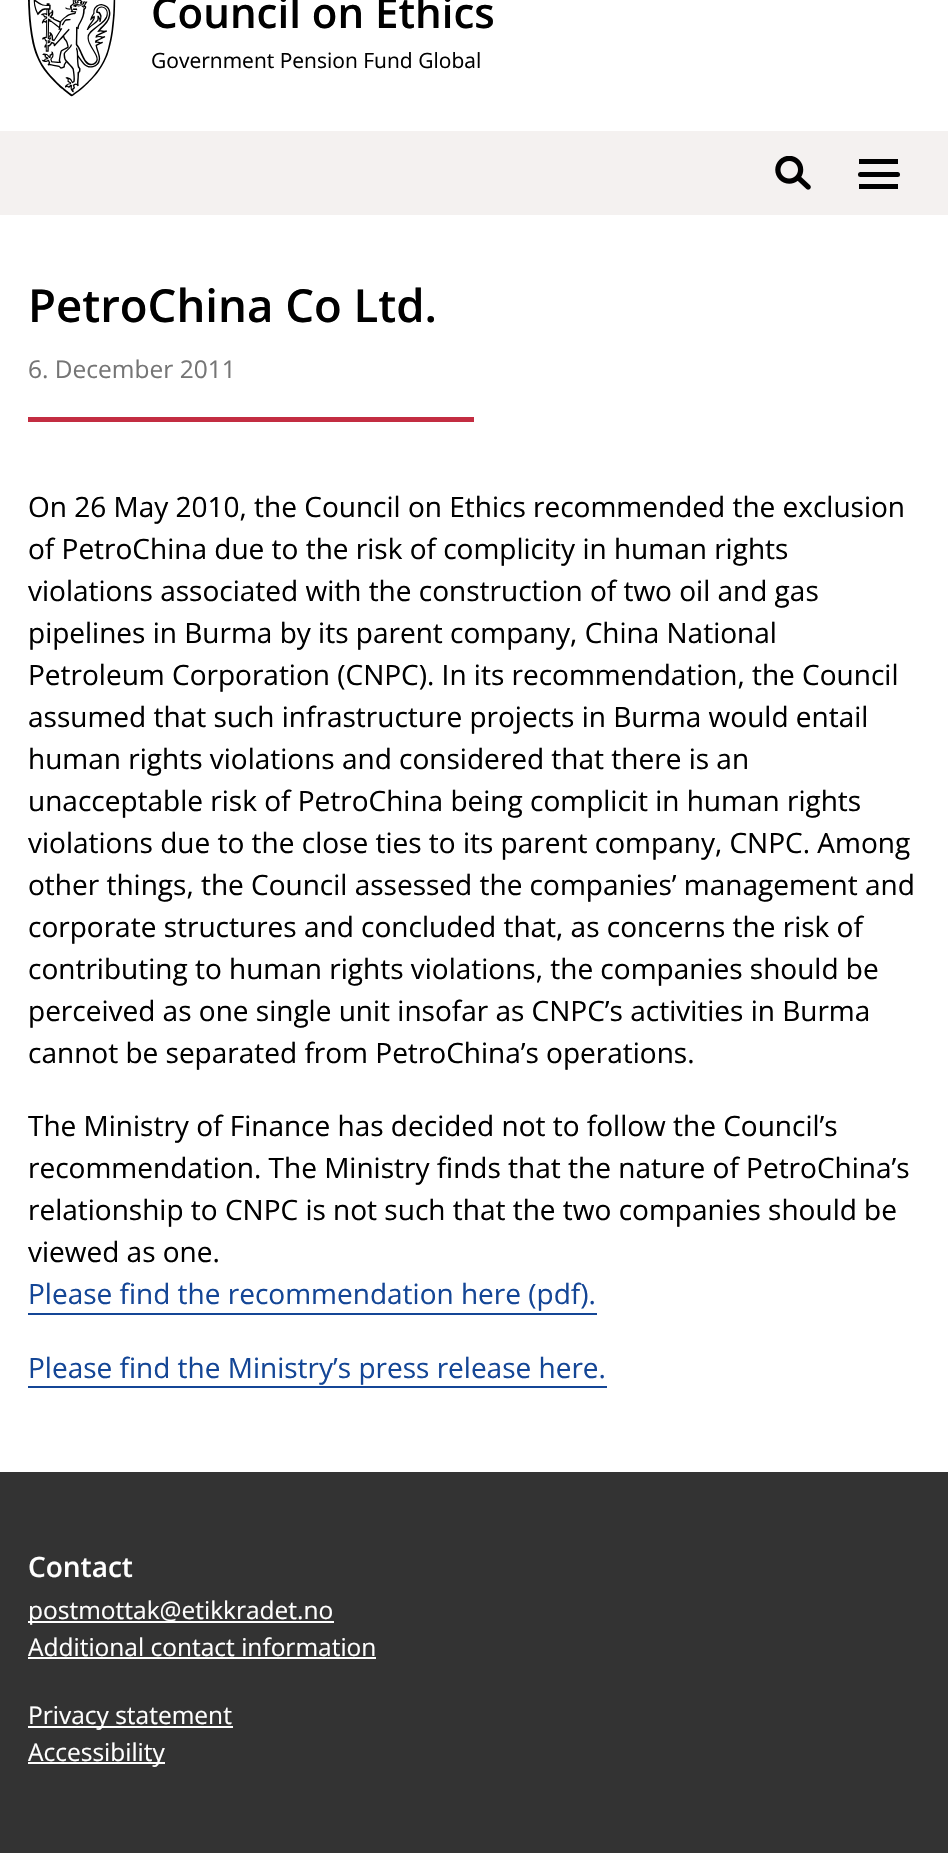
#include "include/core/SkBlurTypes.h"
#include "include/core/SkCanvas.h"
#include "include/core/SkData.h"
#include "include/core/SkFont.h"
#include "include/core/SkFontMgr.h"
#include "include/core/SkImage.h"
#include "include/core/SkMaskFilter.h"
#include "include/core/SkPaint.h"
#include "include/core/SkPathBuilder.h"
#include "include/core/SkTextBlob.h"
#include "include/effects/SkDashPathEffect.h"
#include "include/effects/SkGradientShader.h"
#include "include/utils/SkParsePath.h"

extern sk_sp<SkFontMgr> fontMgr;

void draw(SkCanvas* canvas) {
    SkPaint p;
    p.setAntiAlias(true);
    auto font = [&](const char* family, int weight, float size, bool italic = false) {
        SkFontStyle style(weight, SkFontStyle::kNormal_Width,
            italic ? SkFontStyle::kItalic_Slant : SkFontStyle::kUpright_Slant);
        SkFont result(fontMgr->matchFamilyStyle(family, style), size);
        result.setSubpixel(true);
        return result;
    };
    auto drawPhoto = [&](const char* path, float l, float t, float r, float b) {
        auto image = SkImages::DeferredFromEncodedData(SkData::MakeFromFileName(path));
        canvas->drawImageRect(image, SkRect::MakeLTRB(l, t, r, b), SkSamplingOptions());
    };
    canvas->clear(0xFFFFFFFF);
    drawPhoto("media/1.png", 28, 0, 116, 97);
    auto font1 = font("Open Sans", 600, 42);
    p.setColor(0xFF000000);
    canvas->drawString("Council on Ethics", 151, 28, font1, p);
    auto font2 = font("Open Sans", 400, 21);
    canvas->drawString("Government Pension Fund Global", 151, 68, font2, p);
    p.setColor(0xFFF4F1F0);
    canvas->drawRect(SkRect::MakeLTRB(0, 131, 948, 215), p);
    drawPhoto("media/2.png", 775, 156, 811, 190);
    p.setColor(0xFF000000);
    canvas->drawRoundRect(SkRect::MakeLTRB(858, 172, 900, 177), 2.5f, 2.5f, p);
    canvas->drawRect(SkRect::MakeLTRB(859, 159, 898, 164), p);
    canvas->drawRect(SkRect::MakeLTRB(859, 184, 898, 189), p);
    auto font3 = font("Open Sans", 600, 45.5f);
    canvas->drawString("PetroChina Co Ltd.", 28, 322, font3, p);
    auto font4 = font("Open Sans", 400, 24.5f);
    p.setColor(0xFF757575);
    canvas->drawString("6. December 2011", 28, 378, font4, p);
    p.setColor(0xFFC32D41);
    canvas->drawRect(SkRect::MakeLTRB(28, 417, 474, 422), p);
    auto font5 = font("Open Sans", 400, 28);
    p.setColor(0xFF000000);
    {
        const struct { const char* s; float x, y; } items[] = {
            {"On 26 May 2010, the Council on Ethics recommended the exclusion", 28, 517},
            {"of PetroChina due to the risk of complicity in human rights", 28, 559},
            {"violations associated with the construction of two oil and gas", 28, 601},
            {"pipelines in Burma by its parent company, China National", 28, 643},
            {"Petroleum Corporation (CNPC). In its recommendation, the Council", 28, 685},
            {"assumed that such infrastructure projects in Burma would entail", 28, 727},
            {"human rights violations and considered that there is an", 28, 769},
            {"unacceptable risk of PetroChina being complicit in human rights", 28, 811},
            {"violations due to the close ties to its parent company, CNPC. Among", 28, 853},
            {"other things, the Council assessed the companies’ management and", 28, 895},
            {"corporate structures and concluded that, as concerns the risk of", 28, 937},
            {"contributing to human rights violations, the companies should be", 28, 979},
            {"perceived as one single unit insofar as CNPC’s activities in Burma", 28, 1021},
            {"cannot be separated from PetroChina’s operations.", 28, 1063},
            {"The Ministry of Finance has decided not to follow the Council’s", 28, 1136},
            {"recommendation. The Ministry finds that the nature of PetroChina’s", 28, 1178},
            {"relationship to CNPC is not such that the two companies should be", 28, 1220},
            {"viewed as one.", 28, 1262},
        };
        for (auto [s, x, y] : items) {
            canvas->drawString(s, x, y, font5, p);
        }
    }
    p.setColor(0xFF144696);
    canvas->drawString("Please find the recommendation here (pdf).", 28, 1304, font5, p);
    canvas->drawRect(SkRect::MakeLTRB(28, 1313, 597, 1315), p);
    canvas->drawString("Please find the Ministry’s press release here.", 28, 1378, font5, p);
    canvas->drawRect(SkRect::MakeLTRB(28, 1386, 607, 1388), p);
    p.setColor(0xFF333333);
    canvas->drawRect(SkRect::MakeLTRB(0, 1472, 948, 1853), p);
    auto font6 = font("Open Sans", 600, 28);
    p.setColor(0xFFFFFFFF);
    canvas->drawString("Contact", 28, 1577, font6, p);
    canvas->drawRect(SkRect::MakeLTRB(28, 1621, 334, 1623), p);
    canvas->drawString("postmottak@etikkradet.no", 28, 1619, font4, p);
    canvas->drawString("Additional contact information", 28, 1656, font4, p);
    canvas->drawRect(SkRect::MakeLTRB(28, 1657, 376, 1659), p);
    canvas->drawRect(SkRect::MakeLTRB(28, 1726, 233, 1728), p);
    canvas->drawString("Privacy statement", 28, 1724, font4, p);
    canvas->drawRect(SkRect::MakeLTRB(28, 1762, 165, 1764), p);
    canvas->drawString("Accessibility", 28, 1761, font4, p);
}
